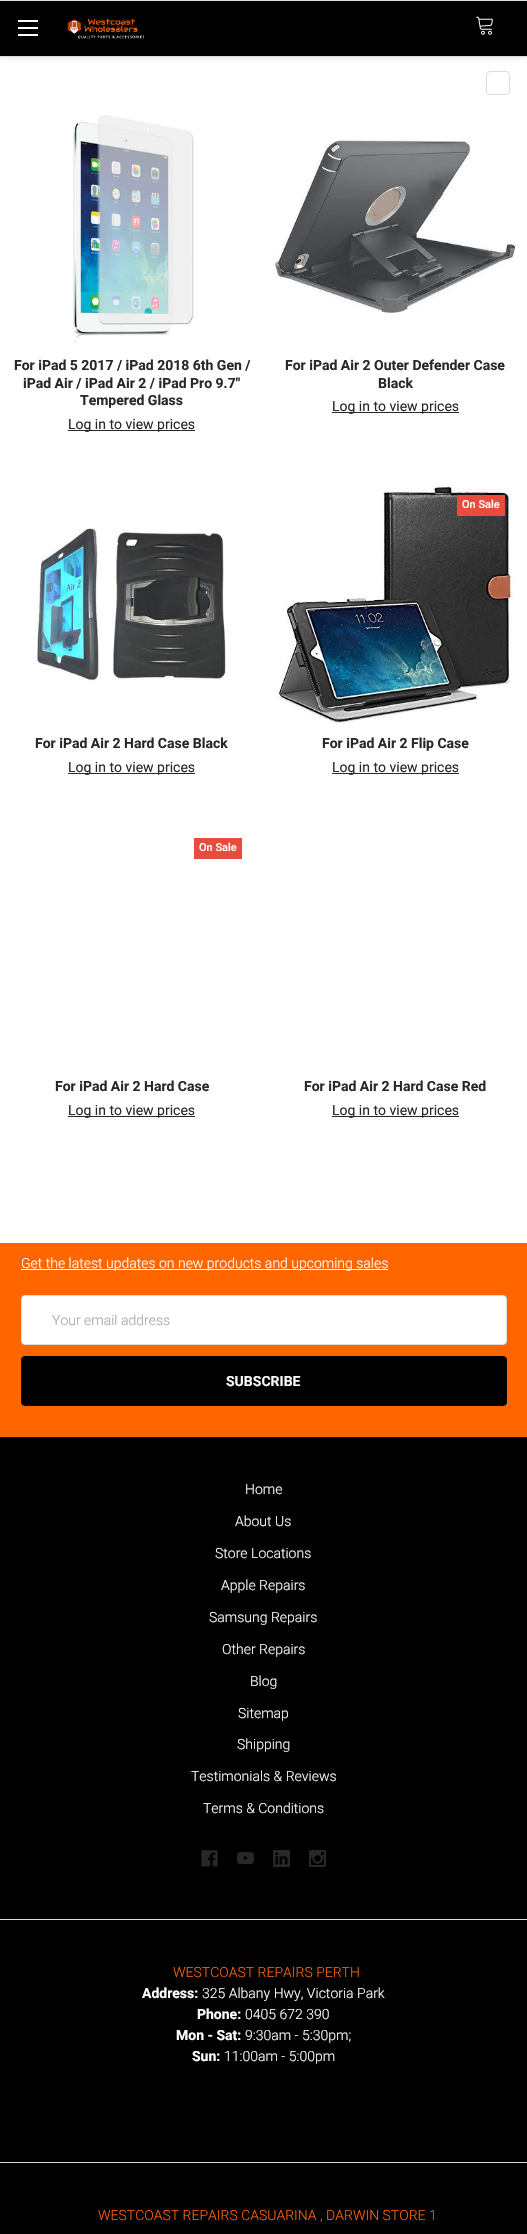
#include "include/core/SkBlurTypes.h"
#include "include/core/SkCanvas.h"
#include "include/core/SkData.h"
#include "include/core/SkFont.h"
#include "include/core/SkFontMgr.h"
#include "include/core/SkImage.h"
#include "include/core/SkMaskFilter.h"
#include "include/core/SkPaint.h"
#include "include/core/SkPathBuilder.h"
#include "include/core/SkTextBlob.h"
#include "include/effects/SkDashPathEffect.h"
#include "include/effects/SkGradientShader.h"
#include "include/utils/SkParsePath.h"

extern sk_sp<SkFontMgr> fontMgr;

void draw(SkCanvas* canvas) {
    SkPaint p;
    p.setAntiAlias(true);
    auto font = [&](const char* family, int weight, float size, bool italic = false) {
        SkFontStyle style(weight, SkFontStyle::kNormal_Width,
            italic ? SkFontStyle::kItalic_Slant : SkFontStyle::kUpright_Slant);
        SkFont result(fontMgr->matchFamilyStyle(family, style), size);
        result.setSubpixel(true);
        return result;
    };
    auto drawPhoto = [&](const char* path, float l, float t, float r, float b) {
        auto image = SkImages::DeferredFromEncodedData(SkData::MakeFromFileName(path));
        canvas->drawImageRect(image, SkRect::MakeLTRB(l, t, r, b), SkSamplingOptions());
    };
    canvas->clear(0xFFFFFFFF);
    p.setColor(0x1A000000);
    p.setMaskFilter(SkMaskFilter::MakeBlur(kNormal_SkBlurStyle, 2.5f));
    canvas->drawRect(SkRect::MakeLTRB(0, 1, 527, 58), p);
    p.setMaskFilter(nullptr);
    {
        const struct { float l, t, r, b; SkColor color; } items[] = {
            {0, 1, 527, 56, 0xFF000000},
            {0, 56, 527, 57, 0xFFDCDCDC},
            {0, 0, 527, 1, 0xFFDCDCDC},
            {18, 27, 38, 29, 0xFFFFFFFF},
            {18, 20, 38, 22, 0xFFFFFFFF},
            {18, 34, 38, 36, 0xFFFFFFFF},
        };
        for (auto [l, t, r, b, color] : items) {
            p.setColor(color);
            canvas->drawRect(SkRect::MakeLTRB(l, t, r, b), p);
        }
    }
    drawPhoto("media/1.png", 67, 18, 145, 39);
    drawPhoto("media/2.png", 476, 16, 493, 35);
    p.setStyle(SkPaint::kStroke_Style);
    p.setStrokeWidth(1);
    p.setColor(0xFFDCDCDC);
    canvas->drawRoundRect(SkRect::MakeLTRB(486.5f, 71.5f, 509.5f, 94.5f), 3.5f, 3.5f, p);
    drawPhoto("media/3.png", 73, 115, 194, 344);
    auto font1 = font("Roboto", 700, 14);
    p.setStyle(SkPaint::kFill_Style);
    p.setColor(0xFF282828);
    {
        const struct { const char* s; float x, y; } items[] = {
            {"For iPad 5 2017 / iPad 2018 6th Gen /", 14, 370},
            {"iPad Air / iPad Air 2 / iPad Pro 9.7\"", 23, 388},
            {"Tempered Glass", 80, 405},
        };
        for (auto [s, x, y] : items) {
            canvas->drawString(s, x, y, font1, p);
        }
    }
    canvas->drawRect(SkRect::MakeLTRB(68, 430, 195, 431), p);
    auto font2 = font("Roboto", 400, 14);
    canvas->drawString("Log in to view prices", 68, 429, font2, p);
    drawPhoto("media/4.png", 275, 140, 515, 313);
    canvas->drawString("For iPad Air 2 Outer Defender Case", 285, 370, font1, p);
    canvas->drawString("Black", 378, 388, font1, p);
    canvas->drawRect(SkRect::MakeLTRB(332, 412, 459, 413), p);
    canvas->drawString("Log in to view prices", 332, 411, font2, p);
    drawPhoto("media/5.png", 34, 528, 226, 682);
    canvas->drawString("For iPad Air 2 Hard Case Black", 35, 748, font1, p);
    canvas->drawRect(SkRect::MakeLTRB(68, 773, 195, 774), p);
    canvas->drawString("Log in to view prices", 68, 772, font2, p);
    drawPhoto("media/6.png", 276, 485, 515, 724);
    p.setColor(0xFFE74C3C);
    canvas->drawRect(SkRect::MakeLTRB(457, 495, 505, 516), p);
    auto font3 = font("Roboto", 500, 11);
    p.setColor(0xFFFFFFFF);
    canvas->drawString("On Sale", 462, 508, font3, p);
    p.setColor(0xFF282828);
    canvas->drawString("For iPad Air 2 Flip Case", 322, 748, font1, p);
    canvas->drawRect(SkRect::MakeLTRB(332, 773, 459, 774), p);
    canvas->drawString("Log in to view prices", 332, 772, font2, p);
    p.setColor(0xFFE74C3C);
    canvas->drawRect(SkRect::MakeLTRB(194, 838, 242, 859), p);
    p.setColor(0xFFFFFFFF);
    canvas->drawString("On Sale", 199, 851, font3, p);
    p.setColor(0xFF282828);
    canvas->drawString("For iPad Air 2 Hard Case", 55, 1091, font1, p);
    canvas->drawRect(SkRect::MakeLTRB(68, 1116, 195, 1117), p);
    canvas->drawString("Log in to view prices", 68, 1115, font2, p);
    canvas->drawString("For iPad Air 2 Hard Case Red", 304, 1091, font1, p);
    canvas->drawRect(SkRect::MakeLTRB(332, 1116, 459, 1117), p);
    canvas->drawString("Log in to view prices", 332, 1115, font2, p);
    {
        const struct { float l, t, r, b; SkColor color; } items[] = {
            {0, 1437, 527, 2234, 0xFF000000},
            {0, 1243, 527, 1437, 0xFFFF6600},
            {21, 1269, 388, 1270, 0xFFFFFFFF},
        };
        for (auto [l, t, r, b, color] : items) {
            p.setColor(color);
            canvas->drawRect(SkRect::MakeLTRB(l, t, r, b), p);
        }
    }
    auto font4 = font("Roboto", 300, 14);
    canvas->drawString("Get the latest updates on new products and upcoming sales", 21, 1268, font4, p);
    canvas->drawRoundRect(SkRect::MakeLTRB(21.5f, 1295.5f, 506.5f, 1344.5f), 3.5f, 3.5f, p);
    p.setStyle(SkPaint::kStroke_Style);
    p.setColor(0xFFDCDCDC);
    canvas->drawRoundRect(SkRect::MakeLTRB(21.5f, 1295.5f, 506.5f, 1344.5f), 3.5f, 3.5f, p);
    p.setStyle(SkPaint::kFill_Style);
    p.setColor(0xFFA5A5A5);
    canvas->drawString("Your email address", 52, 1325, font4, p);
    p.setColor(0xFF000000);
    canvas->drawRoundRect(SkRect::MakeLTRB(21.5f, 1356.5f, 506.5f, 1405.5f), 3.5f, 3.5f, p);
    p.setStyle(SkPaint::kStroke_Style);
    canvas->drawRoundRect(SkRect::MakeLTRB(21.5f, 1356.5f, 506.5f, 1405.5f), 3.5f, 3.5f, p);
    p.setStyle(SkPaint::kFill_Style);
    p.setColor(0xFFF8F8F8);
    canvas->drawString("SUBSCRIBE", 226, 1386, font1, p);
    p.setColor(0xFFDCDCDC);
    canvas->drawRect(SkRect::MakeLTRB(0, 1919, 527, 1920), p);
    p.setColor(0xFFFFFFFF);
    {
        const struct { const char* s; float x, y; } items[] = {
            {"Home", 245, 1494},
            {"About Us", 235, 1526},
            {"Store Locations", 215, 1558},
            {"Apple Repairs", 221, 1590},
            {"Samsung Repairs", 209, 1622},
            {"Other Repairs", 222, 1654},
            {"Blog", 250, 1686},
            {"Sitemap", 238, 1718},
            {"Shipping", 237, 1749},
            {"Testimonials & Reviews", 191, 1781},
            {"Terms & Conditions", 203, 1813},
        };
        for (auto [s, x, y] : items) {
            canvas->drawString(s, x, y, font4, p);
        }
    }
    drawPhoto("media/7.png", 201, 1850, 218, 1867);
    drawPhoto("media/8.png", 237, 1852, 254, 1864);
    drawPhoto("media/9.png", 273, 1850, 290, 1867);
    drawPhoto("media/10.png", 309, 1850, 326, 1867);
    p.setColor(0xFFDCDCDC);
    canvas->drawRect(SkRect::MakeLTRB(0, 2162, 527, 2163), p);
    p.setColor(0xFFFF6304);
    canvas->drawString("WESTCOAST REPAIRS PERTH", 173, 1977, font4, p);
    p.setColor(0xFFFFFFFF);
    canvas->drawString("Address:", 142, 1998, font1, p);
    canvas->drawString("325 Albany Hwy, Victoria Park", 202, 1998, font4, p);
    canvas->drawString("Phone:", 197, 2019, font1, p);
    canvas->drawString("0405 672 390", 245, 2019, font4, p);
    canvas->drawString("Mon - Sat:", 176, 2040, font1, p);
    canvas->drawString("9:30am - 5:30pm;", 245, 2040, font4, p);
    canvas->drawString("Sun:", 192, 2061, font1, p);
    canvas->drawString("11:00am - 5:00pm", 224, 2061, font4, p);
    p.setColor(0xFFFF6304);
    canvas->drawString("WESTCOAST REPAIRS CASUARINA , DARWIN STORE 1", 98, 2220, font4, p);
}
